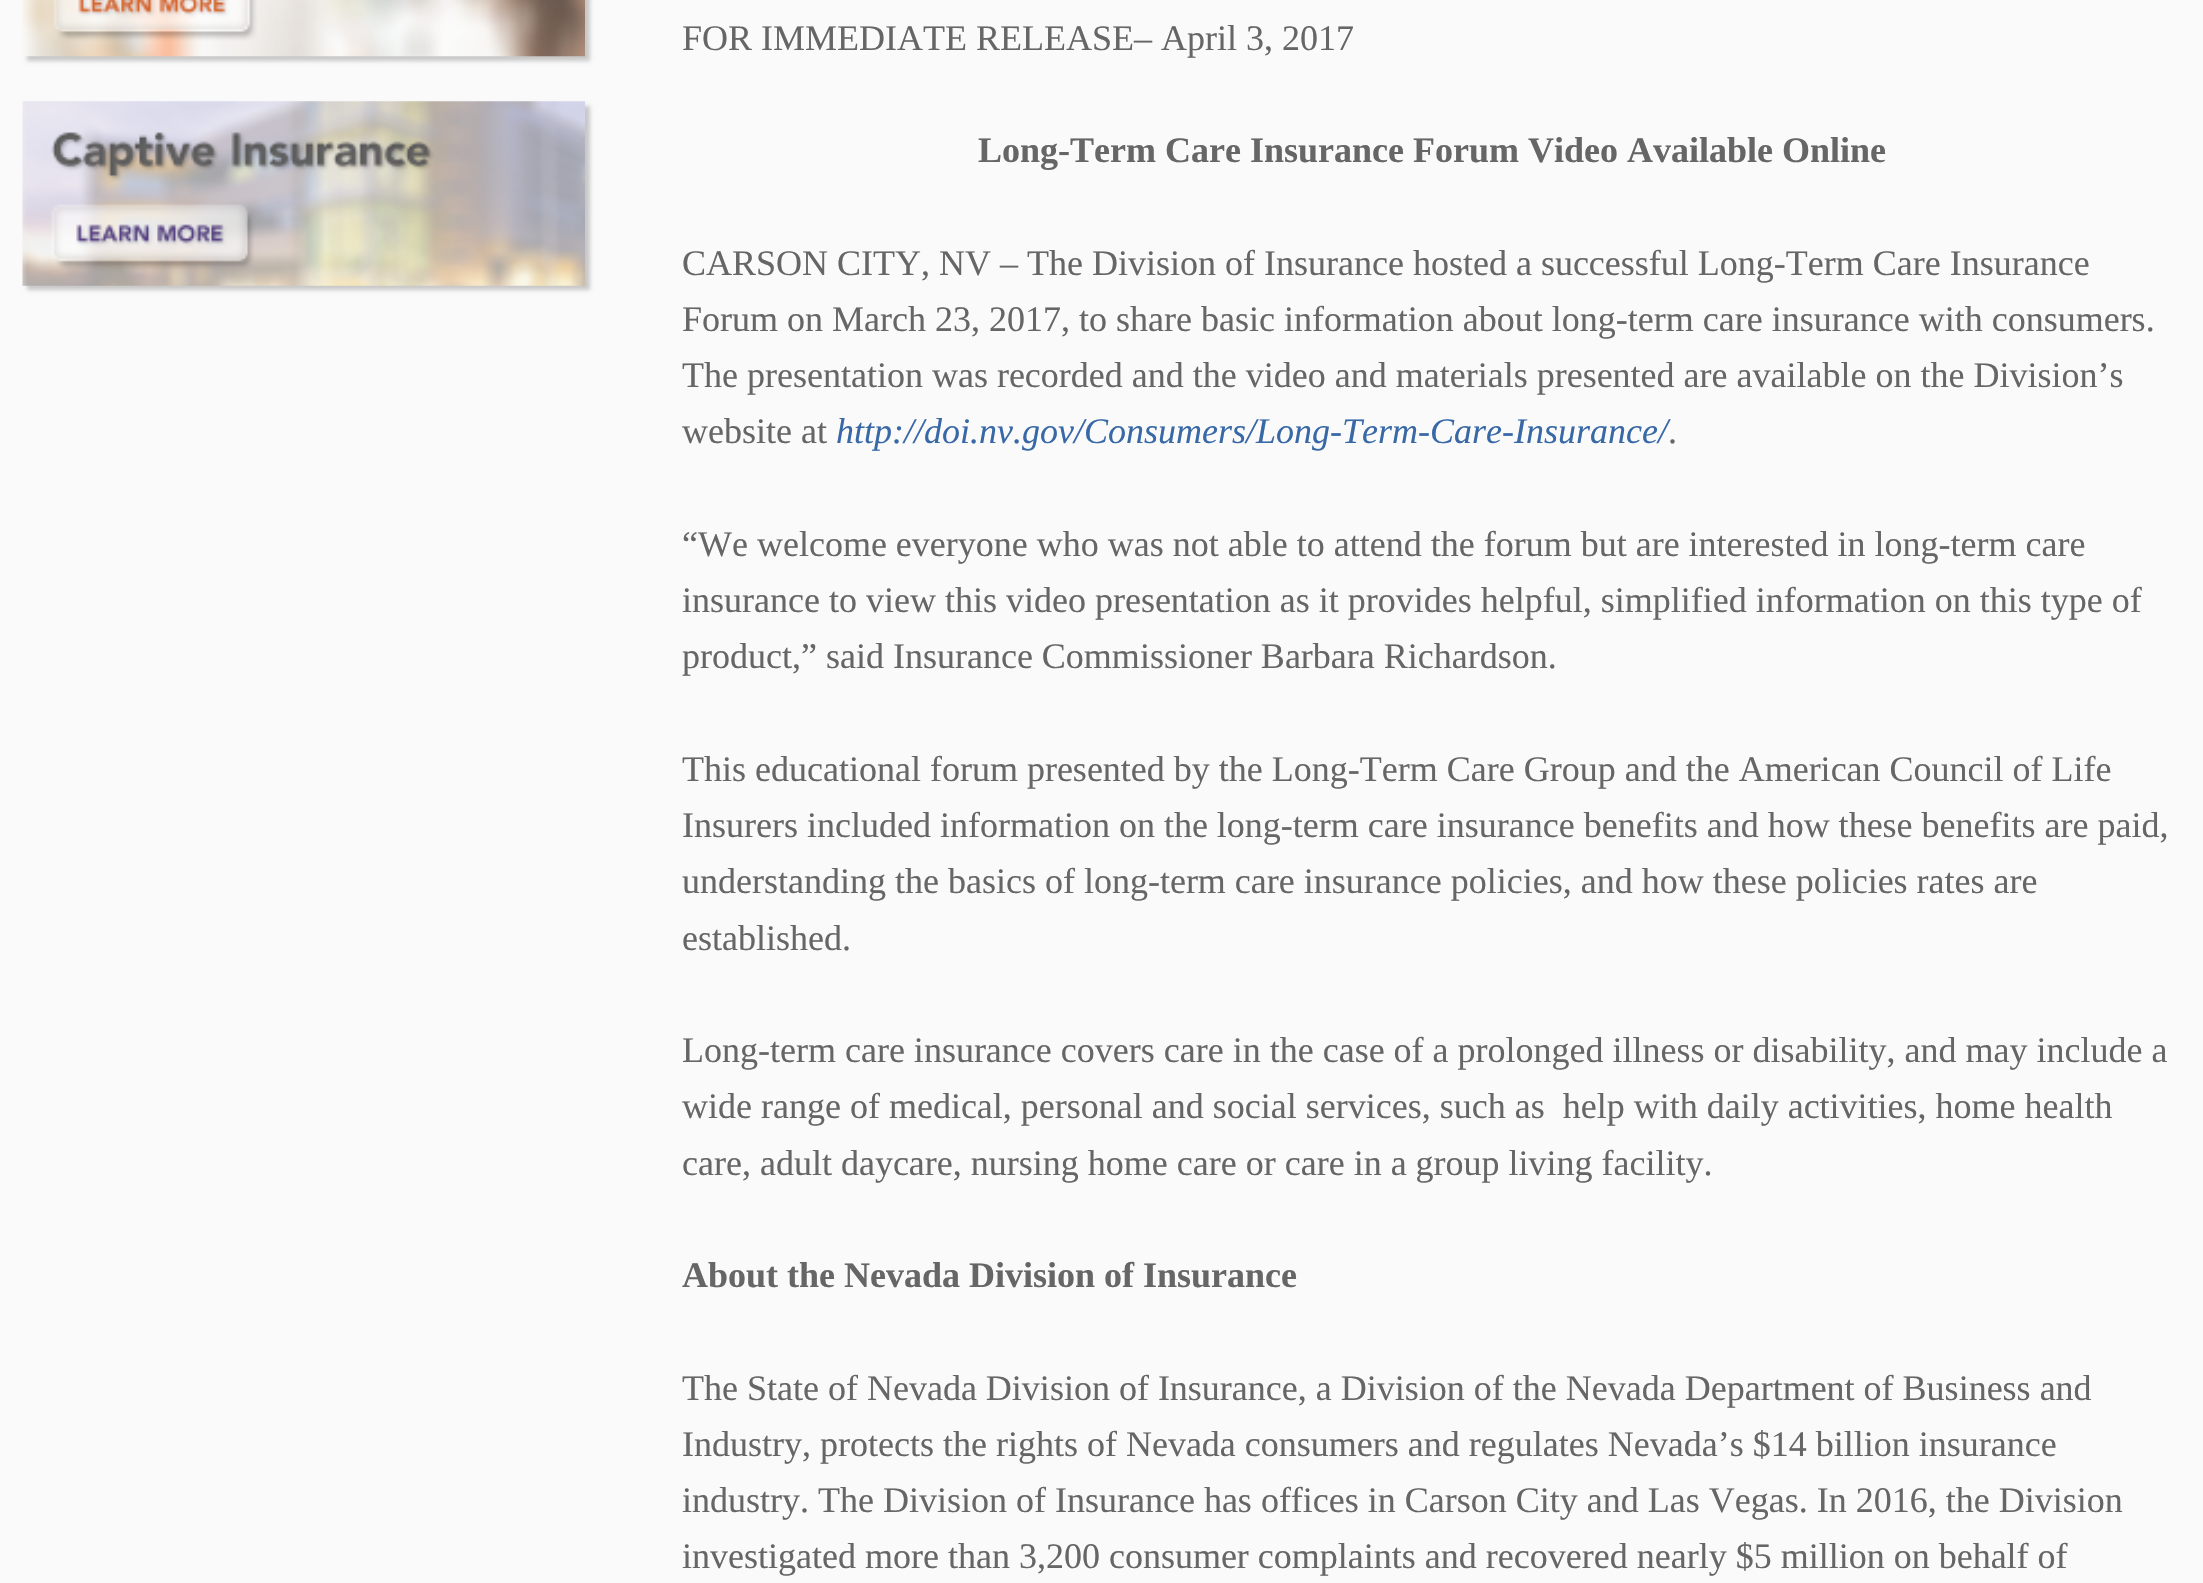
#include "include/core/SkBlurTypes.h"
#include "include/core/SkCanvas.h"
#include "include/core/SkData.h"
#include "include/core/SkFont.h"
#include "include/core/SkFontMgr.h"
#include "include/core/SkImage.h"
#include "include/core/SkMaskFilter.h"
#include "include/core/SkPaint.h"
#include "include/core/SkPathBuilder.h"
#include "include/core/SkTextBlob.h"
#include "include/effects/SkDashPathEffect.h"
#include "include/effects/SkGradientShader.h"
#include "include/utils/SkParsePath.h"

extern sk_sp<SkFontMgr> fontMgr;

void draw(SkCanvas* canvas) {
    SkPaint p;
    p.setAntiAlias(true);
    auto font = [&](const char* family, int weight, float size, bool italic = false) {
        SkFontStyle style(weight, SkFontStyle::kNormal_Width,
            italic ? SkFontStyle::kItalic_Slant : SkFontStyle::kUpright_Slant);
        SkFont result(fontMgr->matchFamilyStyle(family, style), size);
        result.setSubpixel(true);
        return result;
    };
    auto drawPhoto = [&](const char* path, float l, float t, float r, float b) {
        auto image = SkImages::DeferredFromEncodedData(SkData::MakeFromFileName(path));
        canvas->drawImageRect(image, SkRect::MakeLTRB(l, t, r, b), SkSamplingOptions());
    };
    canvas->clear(0xFFFAFAFA);
    p.setColor(0x33000000);
    p.setMaskFilter(SkMaskFilter::MakeBlur(kNormal_SkBlurStyle, 2));
    canvas->drawRect(SkRect::MakeLTRB(27, -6, 590, 61), p);
    p.setMaskFilter(nullptr);
    drawPhoto("media/1.png", 22, 0, 585, 57);
    p.setMaskFilter(SkMaskFilter::MakeBlur(kNormal_SkBlurStyle, 2));
    canvas->drawRect(SkRect::MakeLTRB(27, 106, 590, 290), p);
    p.setMaskFilter(nullptr);
    drawPhoto("media/2.png", 22, 101, 585, 286);
    auto font1 = font("Liberation Serif", 400, 36);
    p.setColor(0xFF666666);
    canvas->drawString("FOR IMMEDIATE RELEASE– April 3, 2017", 682, 50, font1, p);
    auto font2 = font("Liberation Serif", 700, 36);
    canvas->drawString("Long-Term Care Insurance Forum Video Available Online", 978, 162, font2, p);
    {
        const struct { const char* s; float x, y; } items[] = {
            {"CARSON CITY, NV – The Division of Insurance hosted a successful Long-Term Care Insurance", 682, 275},
            {"Forum on March 23, 2017, to share basic information about long-term care insurance with consumers.", 682, 331},
            {"The presentation was recorded and the video and materials presented are available on the Division’s", 682, 387},
            {"website at", 682, 443},
        };
        for (auto [s, x, y] : items) {
            canvas->drawString(s, x, y, font1, p);
        }
    }
    auto font3 = font("Liberation Serif", 400, 36, true);
    p.setColor(0xFF3868A6);
    canvas->drawString("http://doi.nv.gov/Consumers/Long-Term-Care-Insurance/", 836, 443, font3, p);
    p.setColor(0xFF666666);
    {
        const struct { const char* s; float x, y; } items[] = {
            {".", 1668, 443},
            {"“We welcome everyone who was not able to attend the forum but are interested in long-term care", 682, 556},
            {"insurance to view this video presentation as it provides helpful, simplified information on this type of", 682, 612},
            {"product,” said Insurance Commissioner Barbara Richardson.", 682, 668},
            {"This educational forum presented by the Long-Term Care Group and the American Council of Life", 682, 781},
            {"Insurers included information on the long-term care insurance benefits and how these benefits are paid,", 682, 837},
            {"understanding the basics of long-term care insurance policies, and how these policies rates are", 682, 893},
            {"established.", 682, 950},
            {"Long-term care insurance covers care in the case of a prolonged illness or disability, and may include a", 682, 1062},
            {"wide range of medical, personal and social services, such as  help with daily activities, home health", 682, 1118},
            {"care, adult daycare, nursing home care or care in a group living facility.", 682, 1175},
        };
        for (auto [s, x, y] : items) {
            canvas->drawString(s, x, y, font1, p);
        }
    }
    canvas->drawString("About the Nevada Division of Insurance", 682, 1287, font2, p);
    {
        const struct { const char* s; float x, y; } items[] = {
            {"The State of Nevada Division of Insurance, a Division of the Nevada Department of Business and", 682, 1400},
            {"Industry, protects the rights of Nevada consumers and regulates Nevada’s $14 billion insurance", 682, 1456},
            {"industry. The Division of Insurance has offices in Carson City and Las Vegas. In 2016, the Division", 682, 1512},
            {"investigated more than 3,200 consumer complaints and recovered nearly $5 million on behalf of", 682, 1568},
        };
        for (auto [s, x, y] : items) {
            canvas->drawString(s, x, y, font1, p);
        }
    }
}
